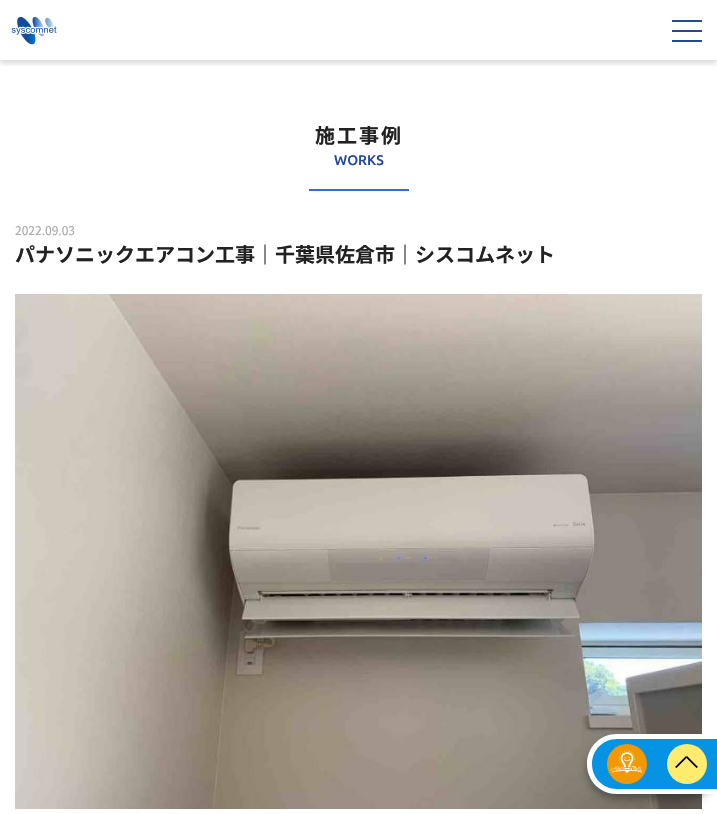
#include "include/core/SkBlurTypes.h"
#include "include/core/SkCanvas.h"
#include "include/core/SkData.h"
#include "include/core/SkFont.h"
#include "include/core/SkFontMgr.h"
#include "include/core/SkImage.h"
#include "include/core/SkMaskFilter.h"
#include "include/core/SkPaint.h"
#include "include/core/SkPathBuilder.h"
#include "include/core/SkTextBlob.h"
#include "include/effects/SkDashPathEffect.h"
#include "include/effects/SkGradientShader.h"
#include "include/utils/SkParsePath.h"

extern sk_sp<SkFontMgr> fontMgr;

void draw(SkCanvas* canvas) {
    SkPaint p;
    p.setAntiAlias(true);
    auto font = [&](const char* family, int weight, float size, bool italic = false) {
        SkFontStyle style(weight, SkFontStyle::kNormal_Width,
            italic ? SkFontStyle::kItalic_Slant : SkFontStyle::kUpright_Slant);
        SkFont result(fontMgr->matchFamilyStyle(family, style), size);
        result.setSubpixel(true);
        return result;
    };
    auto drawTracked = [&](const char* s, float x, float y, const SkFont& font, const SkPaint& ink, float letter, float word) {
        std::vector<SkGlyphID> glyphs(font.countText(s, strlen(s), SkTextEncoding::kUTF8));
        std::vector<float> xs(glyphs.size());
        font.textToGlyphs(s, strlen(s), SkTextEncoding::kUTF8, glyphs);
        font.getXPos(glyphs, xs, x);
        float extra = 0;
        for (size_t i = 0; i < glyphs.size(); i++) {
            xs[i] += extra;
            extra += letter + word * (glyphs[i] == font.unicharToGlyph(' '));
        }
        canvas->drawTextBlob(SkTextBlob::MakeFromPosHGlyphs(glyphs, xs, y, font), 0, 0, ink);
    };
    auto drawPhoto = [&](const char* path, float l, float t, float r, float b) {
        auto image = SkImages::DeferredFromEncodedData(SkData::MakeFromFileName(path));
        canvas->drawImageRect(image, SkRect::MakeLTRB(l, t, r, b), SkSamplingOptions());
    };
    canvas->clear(0xFFFFFFFF);
    canvas->save();
    canvas->clipRect(SkRect::MakeLTRB(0, 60, 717, 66));
    p.setColor(0x29000000);
    p.setMaskFilter(SkMaskFilter::MakeBlur(kNormal_SkBlurStyle, 3));
    canvas->drawRect(SkRect::MakeLTRB(0, 3, 717, 63), p);
    p.setMaskFilter(nullptr);
    canvas->restore();
    drawPhoto("media/1.png", 11, 16, 57, 45);
    {
        const struct { float l, t, r, b; SkColor color; } items[] = {
            {672, 20, 702, 22, 0xFF234A99},
            {672, 30, 702, 32, 0xFF234A99},
            {672, 40, 702, 42, 0xFF234A99},
        };
        for (auto [l, t, r, b, color] : items) {
            p.setColor(color);
            canvas->drawRect(SkRect::MakeLTRB(l, t, r, b), p);
        }
    }
    auto font1 = font("Noto Sans JP", 700, 20);
    p.setColor(0xFF222222);
    drawTracked("施工事例", 315, 143, font1, p, 2, 0);
    auto font2 = font("Ubuntu", 500, 14);
    p.setColor(0xFF234A99);
    canvas->drawString("WORKS", 334, 165, font2, p);
    p.setColor(0xFF326CE0);
    canvas->drawRect(SkRect::MakeLTRB(309, 189, 409, 191), p);
    auto font3 = font("Noto Sans JP", 400, 12);
    p.setColor(0xFFA9A9A9);
    canvas->drawString("2022.09.03", 15, 235, font3, p);
    p.setColor(0xFF222222);
    canvas->drawString("パナソニックエアコン工事｜千葉県佐倉市｜シスコムネット", 15, 262, font1, p);
    drawPhoto("media/2.png", 15, 294, 702, 809);
    p.setColor(0x59000000);
    p.setMaskFilter(SkMaskFilter::MakeBlur(kNormal_SkBlurStyle, 5));
    canvas->drawRoundRect(SkRect::MakeLTRB(587, 739, 717, 799), 30, 30, p);
    p.setMaskFilter(nullptr);
    p.setColor(0xFF0693E3);
    canvas->drawPath(SkPathBuilder().moveTo(617, 734).lineTo(717, 734).lineTo(717, 794).lineTo(617, 794).cubicTo(600.5f, 794, 587, 780.5f, 587, 764).cubicTo(587, 747.5f, 600.5f, 734, 617, 734).close().detach(), p);
    p.setColor(0xFFFFFFFF);
    canvas->drawPath(SkPathBuilder(SkPathFillType::kEvenOdd).moveTo(617, 734).lineTo(717, 734).lineTo(717, 794).lineTo(617, 794).cubicTo(600, 794, 587, 781, 587, 764).cubicTo(587, 747, 600, 734, 617, 734).close().moveTo(617, 739).lineTo(717, 739).lineTo(717, 789).lineTo(617, 789).cubicTo(603, 789, 592, 778, 592, 764).cubicTo(592, 750, 603, 739, 617, 739).close().detach(), p);
    drawPhoto("media/3.png", 607, 744, 647, 784);
    p.setColor(0xFFFFEB6E);
    canvas->drawCircle(687, 764, 20, p);
    p.setColor(0xFF000000);
    canvas->drawPath(SkPathBuilder().moveTo(687, 756).lineTo(698, 767).lineTo(696.5f, 768).lineTo(686, 757.5f).close().detach(), p);
    canvas->drawPath(SkPathBuilder().moveTo(686, 756).lineTo(687, 757.5f).lineTo(676.5f, 768).lineTo(675, 767).close().detach(), p);
}
